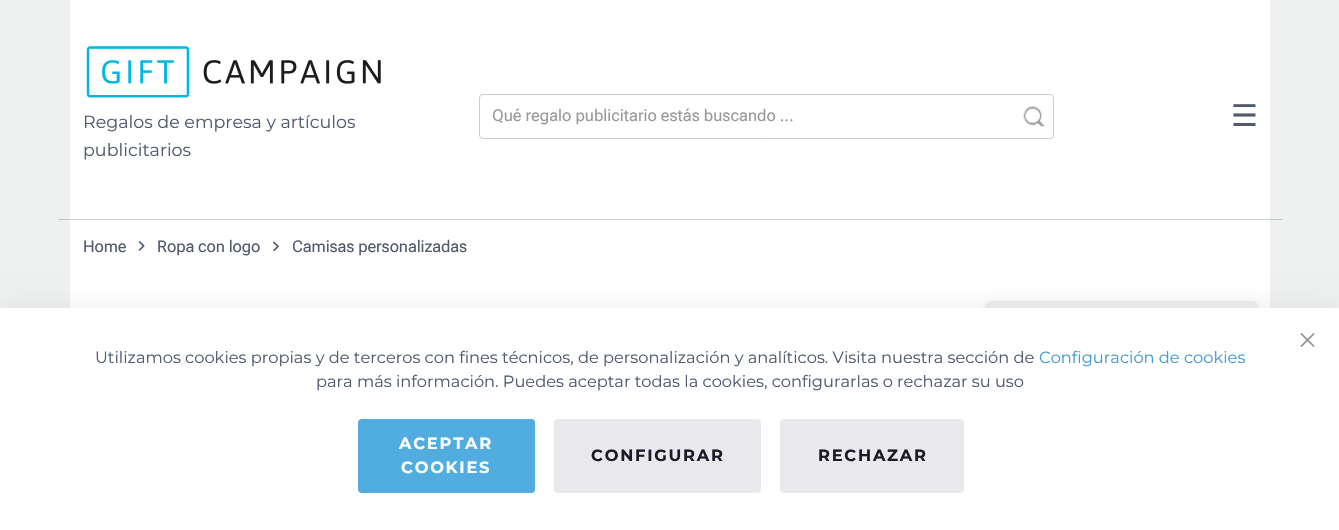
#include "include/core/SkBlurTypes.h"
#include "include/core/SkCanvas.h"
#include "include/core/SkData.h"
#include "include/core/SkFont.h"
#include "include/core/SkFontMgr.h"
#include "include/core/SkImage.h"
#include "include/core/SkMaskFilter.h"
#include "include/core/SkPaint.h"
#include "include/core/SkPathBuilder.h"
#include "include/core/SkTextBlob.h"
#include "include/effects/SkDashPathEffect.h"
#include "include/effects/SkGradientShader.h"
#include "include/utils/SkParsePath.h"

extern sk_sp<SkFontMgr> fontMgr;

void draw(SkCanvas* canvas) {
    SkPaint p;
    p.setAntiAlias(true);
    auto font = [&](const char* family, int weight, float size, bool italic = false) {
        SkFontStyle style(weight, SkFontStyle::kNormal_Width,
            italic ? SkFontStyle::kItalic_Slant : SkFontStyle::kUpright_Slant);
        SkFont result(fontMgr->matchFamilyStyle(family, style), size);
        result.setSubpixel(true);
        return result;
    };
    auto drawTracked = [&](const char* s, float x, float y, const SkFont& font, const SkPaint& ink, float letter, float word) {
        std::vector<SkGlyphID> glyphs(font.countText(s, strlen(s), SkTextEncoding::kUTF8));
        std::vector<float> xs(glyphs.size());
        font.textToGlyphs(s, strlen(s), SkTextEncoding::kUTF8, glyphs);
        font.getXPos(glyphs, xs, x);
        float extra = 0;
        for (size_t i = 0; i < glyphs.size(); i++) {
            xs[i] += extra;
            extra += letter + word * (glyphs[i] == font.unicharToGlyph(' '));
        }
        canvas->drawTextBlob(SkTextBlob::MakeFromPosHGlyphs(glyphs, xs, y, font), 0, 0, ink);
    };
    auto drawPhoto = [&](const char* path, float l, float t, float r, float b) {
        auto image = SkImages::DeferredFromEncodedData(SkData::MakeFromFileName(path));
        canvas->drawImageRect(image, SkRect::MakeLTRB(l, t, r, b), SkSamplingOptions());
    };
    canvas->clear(0xFFEEF1F0);
    {
        const struct { float l, t, r, b; SkColor color; } items[] = {
            {58, 219, 1283, 220, 0xFFC1C6CA},
            {70, 0, 1270, 308, 0xFFFFFFFF},
            {70, 219, 1270, 220, 0xFFCDD0D5},
        };
        for (auto [l, t, r, b, color] : items) {
            p.setColor(color);
            canvas->drawRect(SkRect::MakeLTRB(l, t, r, b), p);
        }
    }
    drawPhoto("media/1.png", 86, 46, 381, 98);
    auto font1 = font("Montserrat", 400, 17.5f);
    p.setColor(0xFF4F5A6D);
    canvas->drawString("Regalos de empresa y artículos", 83, 128, font1, p);
    canvas->drawString("publicitarios", 83, 156, font1, p);
    p.setStyle(SkPaint::kStroke_Style);
    p.setStrokeWidth(1);
    p.setColor(0xFFCCCCCC);
    canvas->drawRoundRect(SkRect::MakeLTRB(479.5f, 94.5f, 1053.5f, 138.5f), 3.5f, 3.5f, p);
    auto font2 = font("Roboto Flex", 400, 16.25f);
    p.setStyle(SkPaint::kFill_Style);
    p.setColor(0xFF999999);
    canvas->drawString("Qué regalo publicitario estás buscando ...", 492, 121, font2, p);
    drawPhoto("media/2.png", 1023, 106, 1045, 127);
    auto font3 = font("DejaVu Sans", 400, 30);
    p.setColor(0xFF4F5A6D);
    canvas->drawString("☰", 1231, 126, font3, p);
    drawTracked("Home", 83, 252, font2, p, -0.1f, 0);
    drawPhoto("media/3.png", 138, 241, 145, 251);
    drawTracked("Ropa con logo", 157, 252, font2, p, -0.1f, 0);
    drawPhoto("media/4.png", 273, 241, 279, 251);
    drawTracked("Camisas personalizadas", 292, 252, font2, p, -0.1f, 0);
    p.setColor(0x1A000000);
    p.setMaskFilter(SkMaskFilter::MakeBlur(kNormal_SkBlurStyle, 3));
    canvas->drawRoundRect(SkRect::MakeLTRB(986, 303, 1258, 519), 6, 6, p);
    p.setMaskFilter(nullptr);
    p.setColor(0xFFEEEEEE);
    canvas->drawRoundRect(SkRect::MakeLTRB(986, 301, 1258, 518), 6, 6, p);
    p.setColor(0x0F000000);
    p.setMaskFilter(SkMaskFilter::MakeBlur(kNormal_SkBlurStyle, 11));
    canvas->drawRect(SkRect::MakeLTRB(0, 305, 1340, 528), p);
    p.setMaskFilter(nullptr);
    p.setColor(0xFFFFFFFF);
    canvas->drawRect(SkRect::MakeLTRB(0, 308, 1339, 530), p);
    drawPhoto("media/5.png", 1300, 333, 1315, 347);
    auto font4 = font("Montserrat", 400, 16.25f);
    p.setColor(0xFF4F5A6D);
    canvas->drawString("Utilizamos cookies propias y de terceros con fines técnicos, de personalización y analíticos. Visita nuestra sección de", 95, 363, font4, p);
    p.setColor(0xFF429AD6);
    canvas->drawString("Configuración de cookies", 1039, 363, font4, p);
    p.setColor(0xFF4F5A6D);
    canvas->drawString("para más información. Puedes aceptar todas la cookies, configurarlas o rechazar su uso", 316, 387, font4, p);
    p.setColor(0xFF51ACE0);
    canvas->drawRoundRect(SkRect::MakeLTRB(358, 419, 535, 493), 4, 4, p);
    auto font5 = font("Montserrat", 700, 16.25f);
    p.setColor(0xFFFFFFFF);
    drawTracked("ACEPTAR", 399, 449, font5, p, 1.75f, 0);
    drawTracked("COOKIES", 401, 473, font5, p, 1.75f, 0);
    p.setColor(0xFFE9E9ED);
    canvas->drawRoundRect(SkRect::MakeLTRB(554, 419, 761, 493), 4, 4, p);
    p.setColor(0xFF1C1A27);
    drawTracked("CONFIGURAR", 591, 461, font5, p, 1.75f, 0);
    p.setColor(0xFFE9E9ED);
    canvas->drawRoundRect(SkRect::MakeLTRB(780, 419, 964, 493), 4, 4, p);
    p.setColor(0xFF1C1A27);
    drawTracked("RECHAZAR", 818, 461, font5, p, 1.75f, 0);
}
